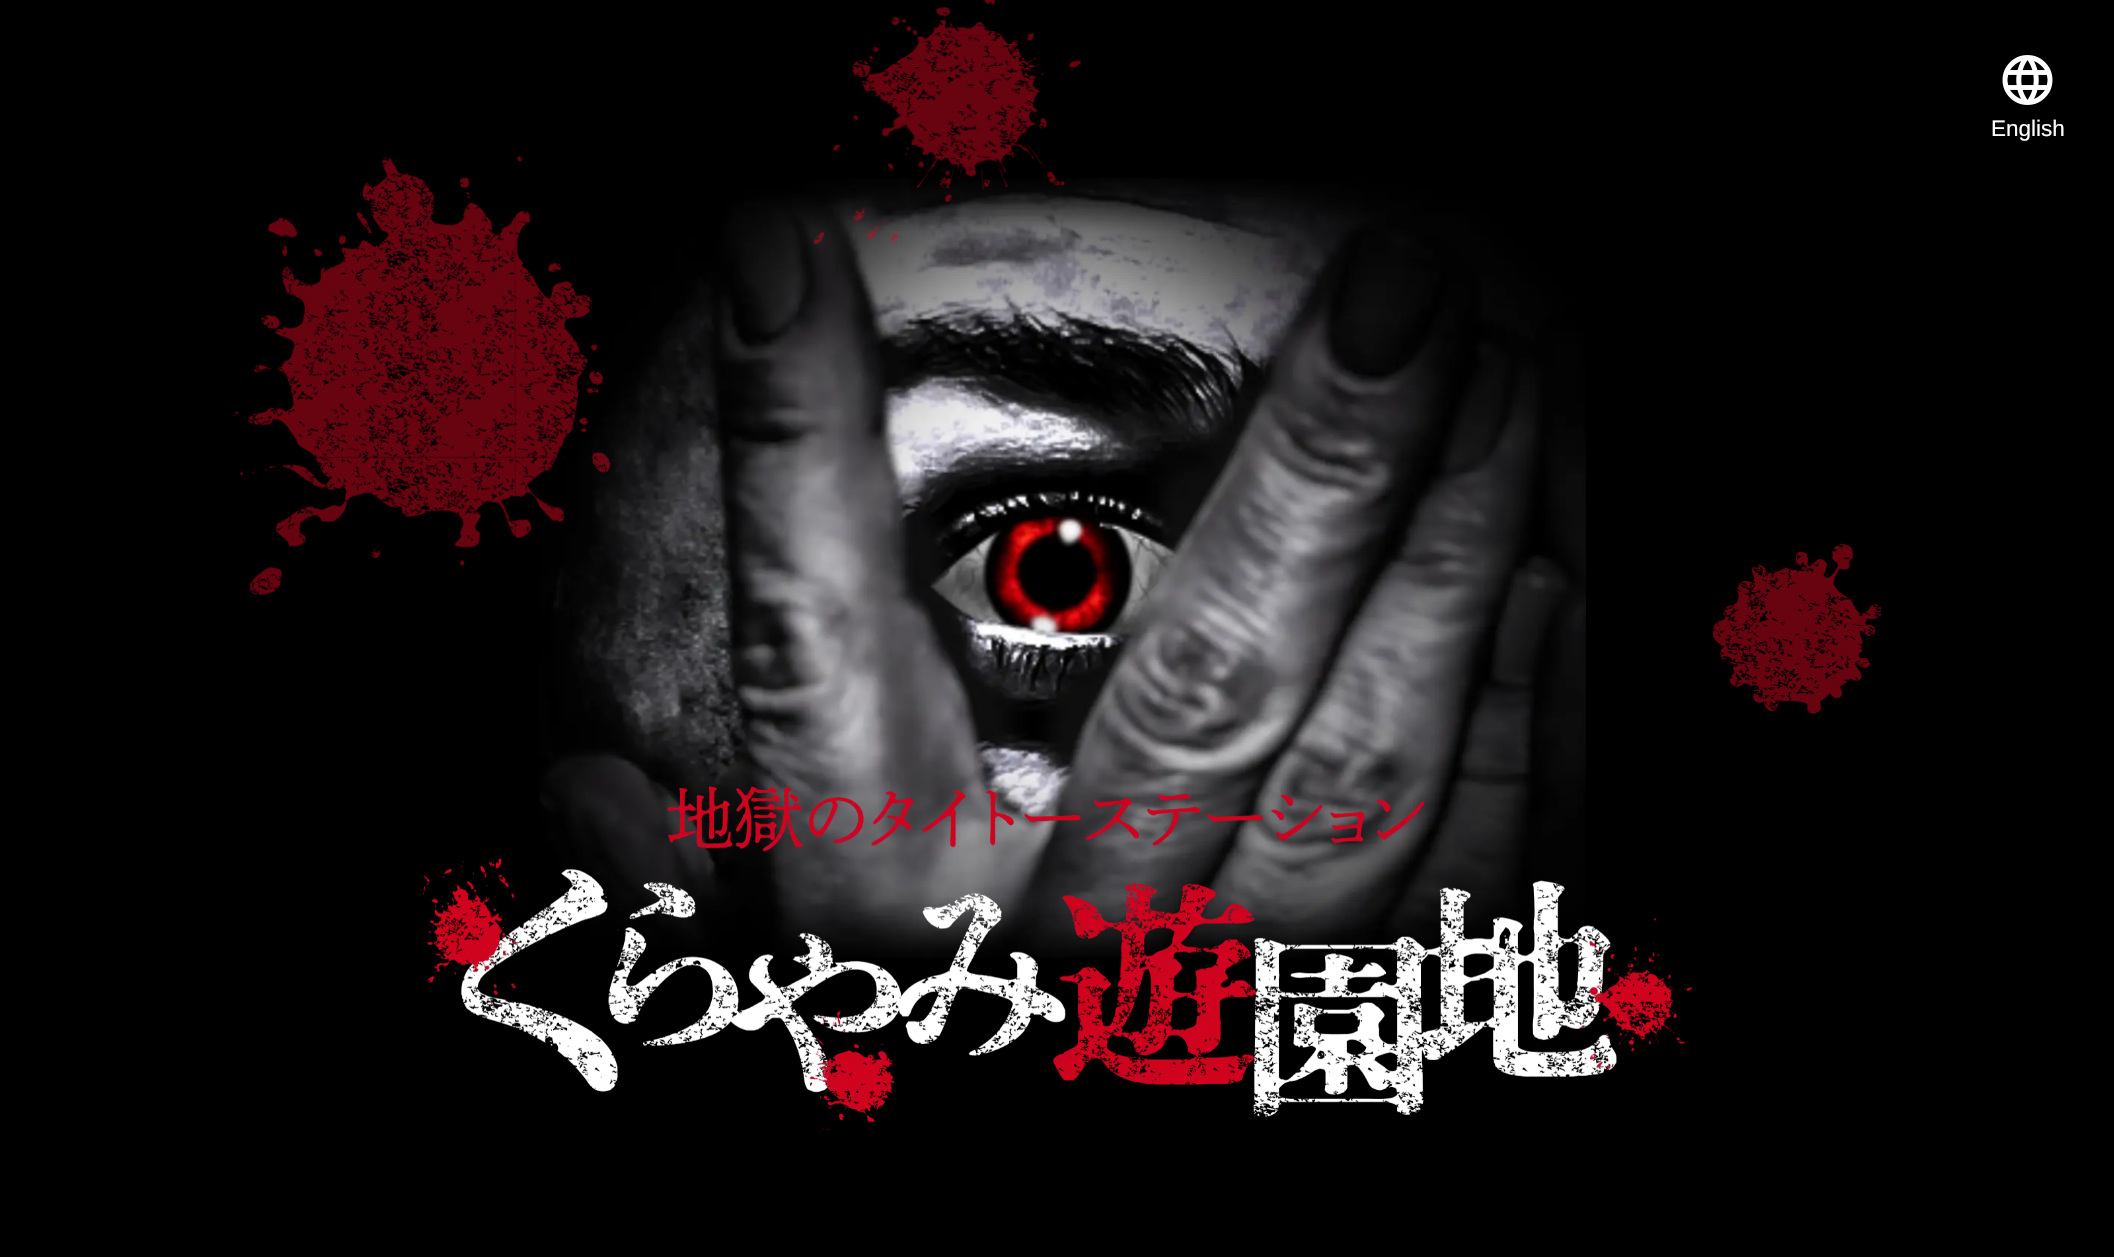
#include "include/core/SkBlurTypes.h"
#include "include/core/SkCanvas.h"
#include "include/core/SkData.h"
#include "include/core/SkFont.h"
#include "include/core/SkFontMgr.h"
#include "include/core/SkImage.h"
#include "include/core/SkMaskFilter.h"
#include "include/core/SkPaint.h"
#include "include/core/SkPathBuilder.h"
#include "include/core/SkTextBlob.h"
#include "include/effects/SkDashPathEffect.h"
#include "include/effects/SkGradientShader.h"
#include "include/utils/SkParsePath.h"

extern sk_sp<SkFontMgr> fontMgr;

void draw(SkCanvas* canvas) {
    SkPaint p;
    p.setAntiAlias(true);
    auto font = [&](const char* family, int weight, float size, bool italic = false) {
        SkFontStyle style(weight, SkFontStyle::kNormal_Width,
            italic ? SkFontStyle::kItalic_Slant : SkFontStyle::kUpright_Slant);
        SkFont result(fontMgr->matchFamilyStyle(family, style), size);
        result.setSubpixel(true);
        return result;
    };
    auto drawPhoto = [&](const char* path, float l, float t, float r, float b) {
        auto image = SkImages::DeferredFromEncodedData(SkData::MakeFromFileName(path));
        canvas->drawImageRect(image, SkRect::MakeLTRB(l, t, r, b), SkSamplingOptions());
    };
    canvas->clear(0xFF000000);
    drawPhoto("media/4.png", 539, 178, 1586, 958);
    drawPhoto("media/1.png", 813, 0, 1082, 245);
    drawPhoto("media/2.png", 234, 156, 611, 595);
    drawPhoto("media/3.png", 1712, 543, 1882, 714);
    drawPhoto("media/5.png", 2002, 55, 2053, 105);
    auto font1 = font("Liberation Sans", 400, 22.5f);
    p.setColor(0xFFFFFFFF);
    canvas->drawString("English", 1991, 136, font1, p);
    drawPhoto("media/6.png", 423, 786, 1692, 1132);
}
